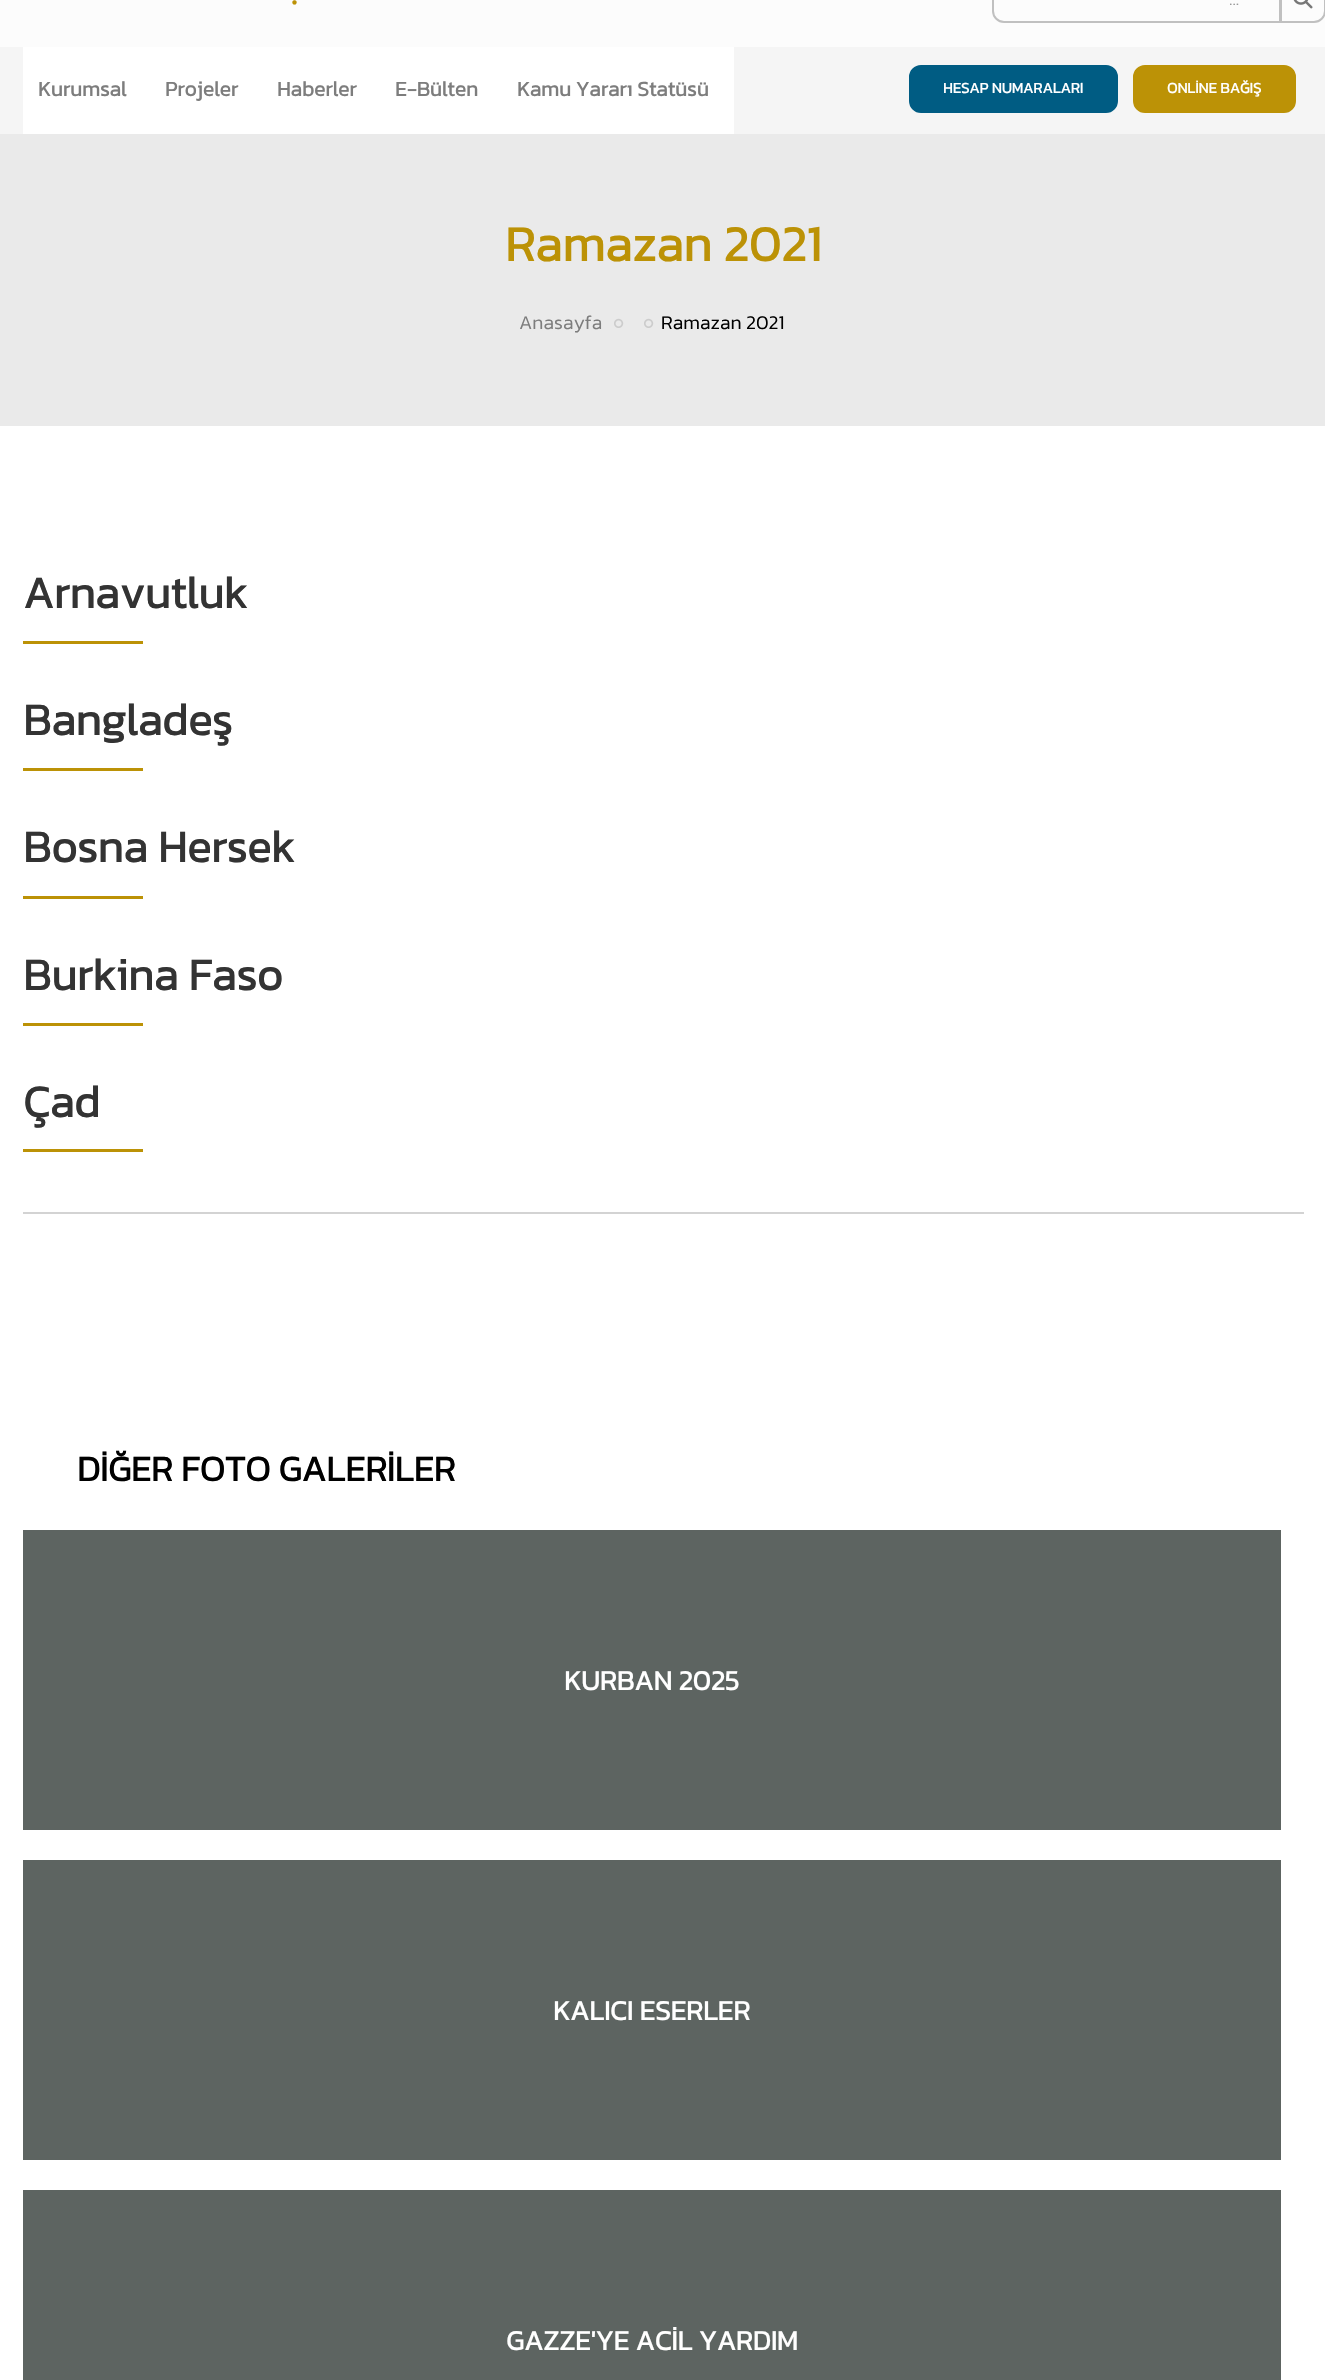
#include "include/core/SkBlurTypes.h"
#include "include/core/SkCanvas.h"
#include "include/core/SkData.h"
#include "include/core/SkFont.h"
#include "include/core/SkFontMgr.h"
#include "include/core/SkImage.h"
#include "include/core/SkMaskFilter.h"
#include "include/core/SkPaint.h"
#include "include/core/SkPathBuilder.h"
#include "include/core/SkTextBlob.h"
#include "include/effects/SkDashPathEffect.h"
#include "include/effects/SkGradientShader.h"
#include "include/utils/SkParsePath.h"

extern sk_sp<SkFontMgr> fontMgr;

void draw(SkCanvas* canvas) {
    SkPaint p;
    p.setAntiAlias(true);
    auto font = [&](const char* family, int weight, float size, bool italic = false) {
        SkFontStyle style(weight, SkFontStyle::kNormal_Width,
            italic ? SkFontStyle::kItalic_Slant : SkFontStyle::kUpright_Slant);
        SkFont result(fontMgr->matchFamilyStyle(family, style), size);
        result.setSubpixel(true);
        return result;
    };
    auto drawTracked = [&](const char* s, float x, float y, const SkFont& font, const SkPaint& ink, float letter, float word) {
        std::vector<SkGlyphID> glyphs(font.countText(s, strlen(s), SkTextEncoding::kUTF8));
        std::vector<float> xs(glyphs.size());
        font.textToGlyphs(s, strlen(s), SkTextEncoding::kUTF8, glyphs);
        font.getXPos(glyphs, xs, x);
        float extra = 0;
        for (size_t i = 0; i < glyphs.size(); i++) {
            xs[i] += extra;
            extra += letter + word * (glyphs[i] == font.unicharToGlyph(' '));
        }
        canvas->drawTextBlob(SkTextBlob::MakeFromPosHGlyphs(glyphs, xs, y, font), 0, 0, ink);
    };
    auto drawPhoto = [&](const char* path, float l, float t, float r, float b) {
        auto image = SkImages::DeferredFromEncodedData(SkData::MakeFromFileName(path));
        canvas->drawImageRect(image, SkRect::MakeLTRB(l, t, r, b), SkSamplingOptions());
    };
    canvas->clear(0xFFFFFFFF);
    p.setColor(0xFFFCFCFC);
    canvas->drawRect(SkRect::MakeLTRB(0, 0, 1325, 47), p);
    auto font1 = font("Liberation Serif", 400, 36);
    p.setColor(0xFFBC9206);
    drawTracked(".", 290, 4, font1, p, 2, 0);
    p.setStyle(SkPaint::kStroke_Style);
    p.setStrokeWidth(2);
    p.setColor(0xFFC0C0C0);
    canvas->drawPath(SkPathBuilder().moveTo(1004, -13).lineTo(1280, -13).lineTo(1280, 22).lineTo(1004, 22).cubicTo(998, 22, 993, 17, 993, 11).lineTo(993, -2).cubicTo(993, -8, 998, -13, 1004, -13).close().detach(), p);
    auto font2 = font("Kanit", 300, 19.5f);
    p.setStyle(SkPaint::kFill_Style);
    p.setColor(0xFF999999);
    canvas->drawString("...", 1229, 5, font2, p);
    p.setStyle(SkPaint::kStroke_Style);
    p.setColor(0xFFC0C0C0);
    canvas->drawPath(SkPathBuilder().moveTo(1281, -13).lineTo(1314, -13).cubicTo(1320, -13, 1325, -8, 1325, -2).lineTo(1325, 11).cubicTo(1325, 17, 1320, 22, 1314, 22).lineTo(1281, 22).close().detach(), p);
    drawPhoto("media/1.png", 1293, 0, 1313, 9);
    p.setStyle(SkPaint::kFill_Style);
    p.setColor(0xFFF5F5F5);
    canvas->drawRect(SkRect::MakeLTRB(0, 47, 1325, 134), p);
    p.setColor(0xFFFFFFFF);
    canvas->drawRect(SkRect::MakeLTRB(23, 47, 734, 134), p);
    auto font3 = font("Kanit", 700, 21);
    p.setColor(0xFF7D7D7D);
    {
        const struct { const char* s; float x, y; } items[] = {
            {"Kurumsal", 38, 96},
            {"Projeler", 165, 96},
            {"Haberler", 277, 96},
            {"E-Bülten", 395, 96},
            {"Kamu Yararı Statüsü", 517, 96},
        };
        for (auto [s, x, y] : items) {
            canvas->drawString(s, x, y, font3, p);
        }
    }
    p.setColor(0xFF005C83);
    canvas->drawRoundRect(SkRect::MakeLTRB(910, 66, 1117, 112), 11, 11, p);
    p.setStyle(SkPaint::kStroke_Style);
    canvas->drawRoundRect(SkRect::MakeLTRB(910, 66, 1117, 112), 11, 11, p);
    auto font4 = font("Kanit", 700, 15);
    p.setStyle(SkPaint::kFill_Style);
    p.setColor(0xFFFFFFFF);
    canvas->drawString("HESAP NUMARALARI", 943, 93, font4, p);
    p.setColor(0xFFBC9206);
    canvas->drawRoundRect(SkRect::MakeLTRB(1134, 66, 1295, 112), 11, 11, p);
    p.setStyle(SkPaint::kStroke_Style);
    canvas->drawRoundRect(SkRect::MakeLTRB(1134, 66, 1295, 112), 11, 11, p);
    p.setStyle(SkPaint::kFill_Style);
    p.setColor(0xFFFFFFFF);
    canvas->drawString("ONLİNE BAĞIŞ", 1167, 93, font4, p);
    p.setColor(0xFFEAEAEA);
    canvas->drawRect(SkRect::MakeLTRB(0, 134, 1325, 426), p);
    auto font5 = font("Kanit", 700, 50);
    p.setColor(0xFFBC9206);
    canvas->drawString("Ramazan 2021", 505, 261, font5, p);
    p.setColor(0xFF7D7D7D);
    canvas->drawString("Anasayfa", 519, 329, font2, p);
    drawPhoto("media/2.png", 614, 318, 624, 328);
    drawPhoto("media/2.png", 644, 318, 654, 328);
    p.setColor(0xFF000000);
    canvas->drawString("Ramazan 2021", 661, 329, font2, p);
    p.setColor(0xFFD3D3D3);
    canvas->drawRect(SkRect::MakeLTRB(23, 1212, 1304, 1214), p);
    auto font6 = font("Kanit", 700, 45);
    p.setColor(0xFF333333);
    canvas->drawString("Arnavutluk", 23, 608, font6, p);
    p.setColor(0xFFBC9206);
    canvas->drawRect(SkRect::MakeLTRB(23, 641, 143, 644), p);
    p.setColor(0xFF333333);
    canvas->drawString("Bangladeş", 23, 735, font6, p);
    p.setColor(0xFFBC9206);
    canvas->drawRect(SkRect::MakeLTRB(23, 768, 143, 771), p);
    p.setColor(0xFF333333);
    canvas->drawString("Bosna Hersek", 23, 862, font6, p);
    p.setColor(0xFFBC9206);
    canvas->drawRect(SkRect::MakeLTRB(23, 896, 143, 899), p);
    p.setColor(0xFF333333);
    canvas->drawString("Burkina Faso", 23, 990, font6, p);
    p.setColor(0xFFBC9206);
    canvas->drawRect(SkRect::MakeLTRB(23, 1023, 143, 1026), p);
    p.setColor(0xFF333333);
    canvas->drawString("Çad", 23, 1117, font6, p);
    p.setColor(0xFFBC9206);
    canvas->drawRect(SkRect::MakeLTRB(23, 1149, 143, 1152), p);
    auto font7 = font("Kanit", 700, 36);
    p.setColor(0xFF000000);
    canvas->drawString("DİĞER FOTO GALERİLER", 77, 1481, font7, p);
    p.setColor(0xFF5D6461);
    canvas->drawRect(SkRect::MakeLTRB(23, 1530, 1281, 1830), p);
    auto font8 = font("Kanit", 700, 28);
    p.setColor(0xFFFFFFFF);
    canvas->drawString("KURBAN 2025", 564, 1690, font8, p);
    p.setColor(0xFF5D6461);
    canvas->drawRect(SkRect::MakeLTRB(23, 1860, 1281, 2160), p);
    p.setColor(0xFFFFFFFF);
    canvas->drawString("KALICI ESERLER", 553, 2020, font8, p);
    p.setColor(0xFF5D6461);
    canvas->drawRect(SkRect::MakeLTRB(23, 2190, 1281, 2380), p);
    p.setColor(0xFFFFFFFF);
    canvas->drawString("GAZZE'YE ACİL YARDIM", 506, 2350, font8, p);
}
